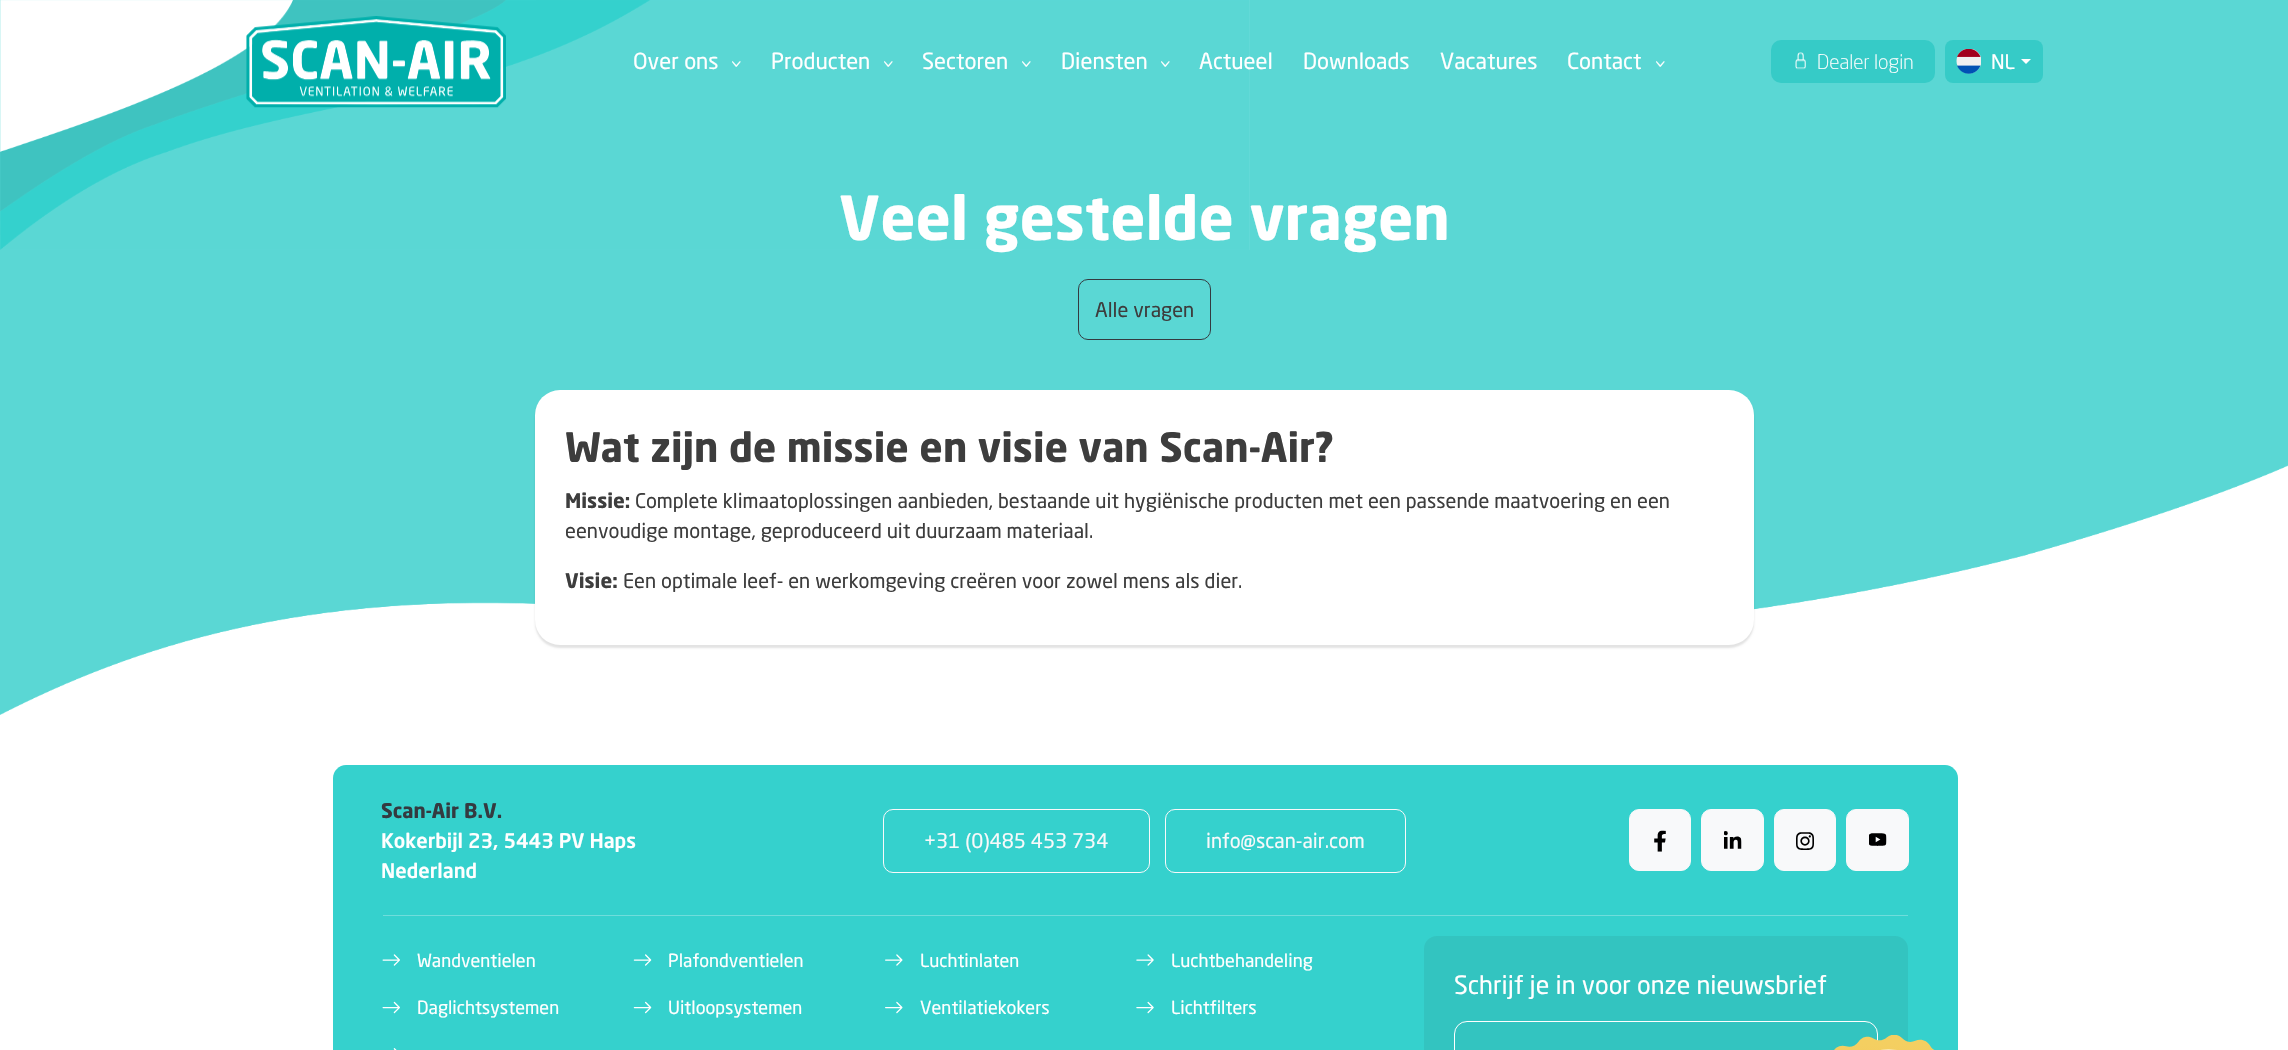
#include "include/core/SkBlurTypes.h"
#include "include/core/SkCanvas.h"
#include "include/core/SkData.h"
#include "include/core/SkFont.h"
#include "include/core/SkFontMgr.h"
#include "include/core/SkImage.h"
#include "include/core/SkMaskFilter.h"
#include "include/core/SkPaint.h"
#include "include/core/SkPathBuilder.h"
#include "include/core/SkTextBlob.h"
#include "include/effects/SkDashPathEffect.h"
#include "include/effects/SkGradientShader.h"
#include "include/utils/SkParsePath.h"

extern sk_sp<SkFontMgr> fontMgr;

void draw(SkCanvas* canvas) {
    SkPaint p;
    p.setAntiAlias(true);
    auto font = [&](const char* family, int weight, float size, bool italic = false) {
        SkFontStyle style(weight, SkFontStyle::kNormal_Width,
            italic ? SkFontStyle::kItalic_Slant : SkFontStyle::kUpright_Slant);
        SkFont result(fontMgr->matchFamilyStyle(family, style), size);
        result.setSubpixel(true);
        return result;
    };
    auto drawPhoto = [&](const char* path, float l, float t, float r, float b) {
        auto image = SkImages::DeferredFromEncodedData(SkData::MakeFromFileName(path));
        canvas->drawImageRect(image, SkRect::MakeLTRB(l, t, r, b), SkSamplingOptions());
    };
    canvas->clear(0xFFFFFFFF);
    p.setColor(0xFF5AD7D4);
    canvas->drawRect(SkRect::MakeLTRB(0, 0, 2288, 715), p);
    drawPhoto("media/4.png", 0, 0, 1250, 250);
    drawPhoto("media/1.png", 246, 16, 506, 108);
    auto font1 = font("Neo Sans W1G", 400, 22);
    p.setColor(0xFFFFFFFF);
    canvas->drawString("Over ons", 633, 69, font1, p);
    auto font2 = font("Neo Sans W1G", 400, 16);
    canvas->save();
    canvas->rotate(90, 730, 59);
    canvas->drawString(">", 730, 59, font2, p);
    canvas->restore();
    canvas->drawString("Producten", 771, 69, font1, p);
    canvas->save();
    canvas->rotate(90, 882, 59);
    canvas->drawString(">", 882, 59, font2, p);
    canvas->restore();
    canvas->drawString("Sectoren", 922, 69, font1, p);
    canvas->save();
    canvas->rotate(90, 1020, 59);
    canvas->drawString(">", 1020, 59, font2, p);
    canvas->restore();
    canvas->drawString("Diensten", 1061, 69, font1, p);
    canvas->save();
    canvas->rotate(90, 1159, 59);
    canvas->drawString(">", 1159, 59, font2, p);
    canvas->restore();
    {
        const struct { const char* s; float x, y; } items[] = {
            {"Actueel", 1199, 69},
            {"Downloads", 1303, 69},
            {"Vacatures", 1440, 69},
            {"Contact", 1567, 69},
        };
        for (auto [s, x, y] : items) {
            canvas->drawString(s, x, y, font1, p);
        }
    }
    canvas->save();
    canvas->rotate(90, 1654, 59);
    canvas->drawString(">", 1654, 59, font2, p);
    canvas->restore();
    p.setColor(0xFF36CBC7);
    canvas->drawRoundRect(SkRect::MakeLTRB(1771, 40, 1935, 83), 10, 10, p);
    drawPhoto("media/2.png", 1795, 52, 1806, 70);
    auto font3 = font("Neo Sans W1G", 300, 20);
    p.setColor(0xFFFFFFFF);
    canvas->drawString("Dealer login", 1817, 69, font3, p);
    p.setColor(0xFF36CBC7);
    canvas->drawRoundRect(SkRect::MakeLTRB(1945, 40, 2043, 83), 8, 8, p);
    drawPhoto("media/3.png", 1956, 49, 1981, 74);
    auto font4 = font("Neo Sans W1G", 400, 20);
    p.setColor(0xFFFFFFFF);
    canvas->drawString("NL", 1991, 69, font4, p);
    canvas->drawPath(SkPathBuilder().moveTo(2021, 59).lineTo(2031, 59).lineTo(2026, 64).close().detach(), p);
    auto font5 = font("Neo Sans W1G", 700, 60);
    canvas->drawString("Veel gestelde vragen", 839, 240, font5, p);
    p.setStyle(SkPaint::kStroke_Style);
    p.setStrokeWidth(1);
    p.setColor(0xFF343A40);
    canvas->drawRoundRect(SkRect::MakeLTRB(1078.5f, 279.5f, 1210.5f, 339.5f), 9.5f, 9.5f, p);
    p.setStyle(SkPaint::kFill_Style);
    p.setColor(0xFF3D3D3D);
    canvas->drawString("Alle vragen", 1095, 317, font4, p);
    drawPhoto("media/5.png", 0, 465, 2288, 715);
    p.setColor(0x1C000000);
    p.setMaskFilter(SkMaskFilter::MakeBlur(kNormal_SkBlurStyle, 1));
    canvas->drawRoundRect(SkRect::MakeLTRB(535, 393, 1754, 648), 25, 25, p);
    p.setMaskFilter(nullptr);
    p.setColor(0xFFFFFFFF);
    canvas->drawRoundRect(SkRect::MakeLTRB(535, 390, 1754, 645), 25, 25, p);
    auto font6 = font("Neo Sans W1G", 700, 40);
    p.setColor(0xFF3D3D3D);
    canvas->drawString("Wat zijn de missie en visie van Scan-Air?", 565, 462, font6, p);
    auto font7 = font("Neo Sans W1G", 700, 20);
    canvas->drawString("Missie:", 565, 508, font7, p);
    canvas->drawString("Complete klimaatoplossingen aanbieden, bestaande uit hygiënische producten met een passende maatvoering en een", 635, 508, font4, p);
    canvas->drawString("eenvoudige montage, geproduceerd uit duurzaam materiaal.", 565, 538, font4, p);
    canvas->drawString("Visie:", 565, 588, font7, p);
    canvas->drawString("Een optimale leef- en werkomgeving creëren voor zowel mens als dier.", 623, 588, font4, p);
    p.setColor(0xFF35D1CD);
    canvas->drawPath(SkPathBuilder().moveTo(346, 765).lineTo(1945, 765).cubicTo(1952, 765, 1958, 771, 1958, 778).lineTo(1958, 915).lineTo(333, 915).lineTo(333, 778).cubicTo(333, 771, 339, 765, 346, 765).close().detach(), p);
    p.setColor(0xFF343A40);
    canvas->drawString("Scan-Air B.V.", 381, 818, font7, p);
    auto font8 = font("Neo Sans W1G", 500, 20);
    p.setColor(0xFFFFFFFF);
    canvas->drawString("Kokerbijl 23, 5443 PV Haps", 381, 848, font8, p);
    canvas->drawString("Nederland", 381, 878, font8, p);
    p.setStyle(SkPaint::kStroke_Style);
    p.setColor(0xFFF8F9FA);
    canvas->drawRoundRect(SkRect::MakeLTRB(883.5f, 809.5f, 1149.5f, 872.5f), 9.5f, 9.5f, p);
    p.setStyle(SkPaint::kFill_Style);
    canvas->drawString("+31 (0)485 453 734", 924, 848, font4, p);
    p.setStyle(SkPaint::kStroke_Style);
    canvas->drawRoundRect(SkRect::MakeLTRB(1165.5f, 809.5f, 1405.5f, 872.5f), 9.5f, 9.5f, p);
    p.setStyle(SkPaint::kFill_Style);
    canvas->drawString("info@scan-air.com", 1206, 848, font4, p);
    canvas->drawRoundRect(SkRect::MakeLTRB(1629.5f, 809.5f, 1690.5f, 870.5f), 9.5f, 9.5f, p);
    p.setStyle(SkPaint::kStroke_Style);
    canvas->drawRoundRect(SkRect::MakeLTRB(1629.5f, 809.5f, 1690.5f, 870.5f), 9.5f, 9.5f, p);
    drawPhoto("media/6.png", 1654, 830, 1666, 852);
    p.setStyle(SkPaint::kFill_Style);
    canvas->drawRoundRect(SkRect::MakeLTRB(1701.5f, 809.5f, 1763.5f, 870.5f), 9.5f, 9.5f, p);
    p.setStyle(SkPaint::kStroke_Style);
    canvas->drawRoundRect(SkRect::MakeLTRB(1701.5f, 809.5f, 1763.5f, 870.5f), 9.5f, 9.5f, p);
    drawPhoto("media/7.png", 1724, 831, 1742, 849);
    p.setStyle(SkPaint::kFill_Style);
    canvas->drawRoundRect(SkRect::MakeLTRB(1774.5f, 809.5f, 1835.5f, 870.5f), 9.5f, 9.5f, p);
    p.setStyle(SkPaint::kStroke_Style);
    canvas->drawRoundRect(SkRect::MakeLTRB(1774.5f, 809.5f, 1835.5f, 870.5f), 9.5f, 9.5f, p);
    drawPhoto("media/8.png", 1796, 832, 1814, 850);
    p.setStyle(SkPaint::kFill_Style);
    canvas->drawRoundRect(SkRect::MakeLTRB(1846.5f, 809.5f, 1908.5f, 870.5f), 9.5f, 9.5f, p);
    p.setStyle(SkPaint::kStroke_Style);
    canvas->drawRoundRect(SkRect::MakeLTRB(1846.5f, 809.5f, 1908.5f, 870.5f), 9.5f, 9.5f, p);
    drawPhoto("media/9.png", 1869, 833, 1887, 846);
    p.setStyle(SkPaint::kFill_Style);
    p.setColor(0xFF35D1CD);
    canvas->drawRect(SkRect::MakeLTRB(333, 915, 1958, 1050), p);
    p.setColor(0xFF6FDDDB);
    canvas->drawRect(SkRect::MakeLTRB(383, 915, 1908, 916), p);
    drawPhoto("media/10.png", 382, 954, 400, 966);
    auto font9 = font("Neo Sans W1G", 400, 18);
    p.setColor(0xFFFFFFFF);
    canvas->drawString("Wandventielen", 417, 967, font9, p);
    drawPhoto("media/11.png", 633, 954, 652, 966);
    canvas->drawString("Plafondventielen", 668, 967, font9, p);
    drawPhoto("media/12.png", 885, 954, 903, 966);
    canvas->drawString("Luchtinlaten", 920, 967, font9, p);
    drawPhoto("media/13.png", 1136, 954, 1154, 966);
    canvas->drawString("Luchtbehandeling", 1171, 967, font9, p);
    drawPhoto("media/14.png", 382, 1001, 400, 1014);
    canvas->drawString("Daglichtsystemen", 417, 1014, font9, p);
    drawPhoto("media/15.png", 633, 1001, 652, 1014);
    canvas->drawString("Uitloopsystemen", 668, 1014, font9, p);
    drawPhoto("media/16.png", 885, 1001, 903, 1014);
    canvas->drawString("Ventilatiekokers", 920, 1014, font9, p);
    drawPhoto("media/17.png", 1136, 1001, 1154, 1014);
    canvas->drawString("Lichtfilters", 1171, 1014, font9, p);
    drawPhoto("media/18.png", 393, 1048, 397, 1050);
    p.setColor(0xFF33C4C0);
    canvas->drawRoundRect(SkRect::MakeLTRB(1424, 936, 1908, 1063), 13, 13, p);
    auto font10 = font("Neo Sans W1G", 400, 25);
    p.setColor(0xFFFFFFFF);
    canvas->drawString("Schrijf je in voor onze nieuwsbrief", 1454, 994, font10, p);
    p.setStyle(SkPaint::kStroke_Style);
    canvas->drawRoundRect(SkRect::MakeLTRB(1454.5f, 1021.5f, 1877.5f, 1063.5f), 12.5f, 12.5f, p);
    drawPhoto("media/19.png", 1834, 1035, 1935, 1050);
}
